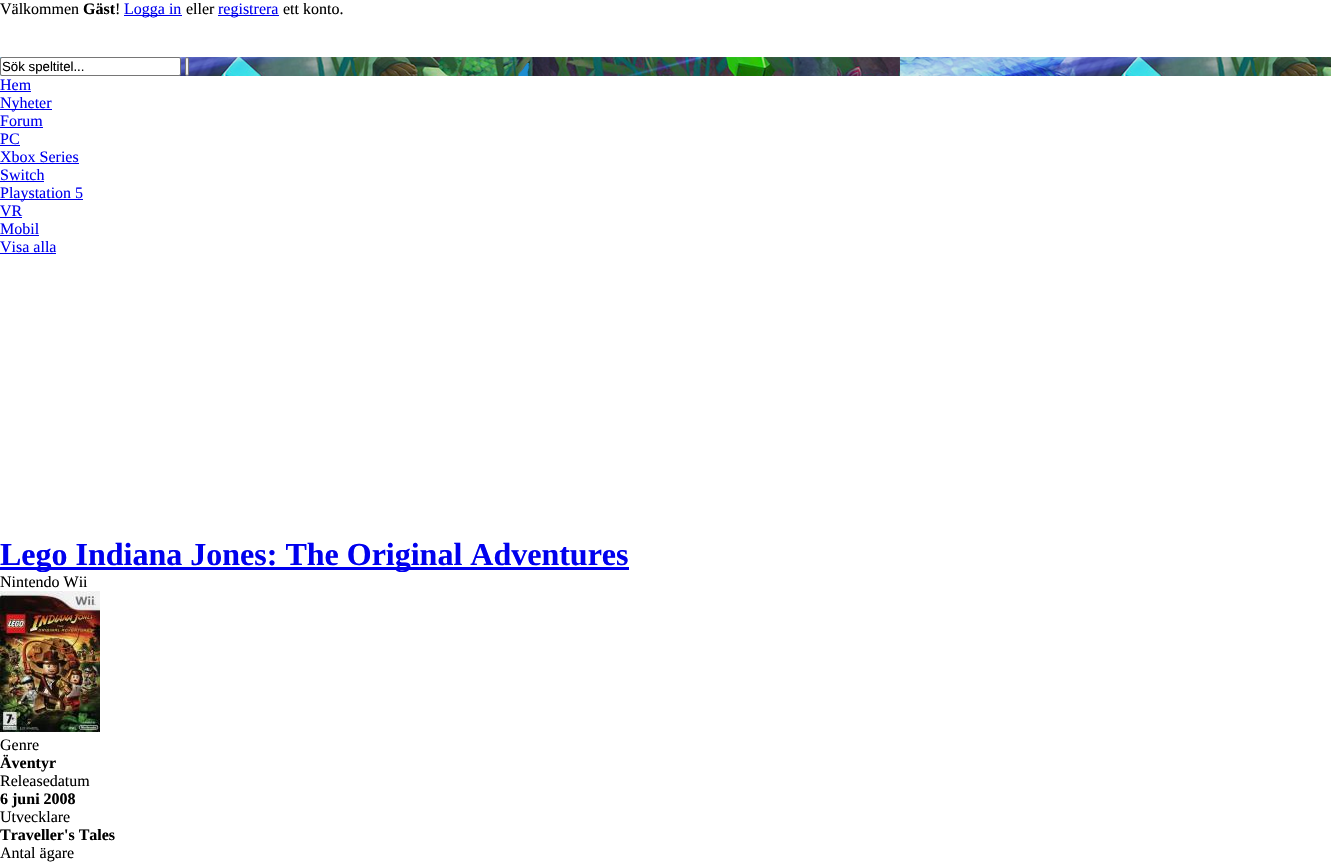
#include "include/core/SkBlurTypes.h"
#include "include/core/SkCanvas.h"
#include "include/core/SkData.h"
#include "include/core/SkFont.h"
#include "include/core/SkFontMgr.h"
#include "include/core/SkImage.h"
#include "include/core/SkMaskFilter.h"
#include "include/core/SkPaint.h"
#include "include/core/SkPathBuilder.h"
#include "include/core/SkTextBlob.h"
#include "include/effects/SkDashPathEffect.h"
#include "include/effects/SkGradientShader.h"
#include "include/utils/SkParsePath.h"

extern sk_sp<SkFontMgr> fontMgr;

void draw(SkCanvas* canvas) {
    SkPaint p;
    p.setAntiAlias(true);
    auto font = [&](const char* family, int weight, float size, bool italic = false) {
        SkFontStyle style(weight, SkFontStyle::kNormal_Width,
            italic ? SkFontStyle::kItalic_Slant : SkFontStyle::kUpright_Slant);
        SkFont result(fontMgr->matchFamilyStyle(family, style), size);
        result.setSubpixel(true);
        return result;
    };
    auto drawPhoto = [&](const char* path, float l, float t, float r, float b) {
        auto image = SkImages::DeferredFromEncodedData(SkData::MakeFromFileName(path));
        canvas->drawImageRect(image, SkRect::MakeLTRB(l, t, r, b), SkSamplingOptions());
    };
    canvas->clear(0xFFFFFFFF);
    auto font1 = font("Liberation Serif", 400, 16);
    p.setColor(0xFF000000);
    canvas->drawString("Välkommen", 0, 14, font1, p);
    auto font2 = font("Liberation Serif", 700, 16);
    canvas->drawString("Gäst", 83, 14, font2, p);
    canvas->drawString("!", 115, 14, font1, p);
    p.setColor(0xFF0000EE);
    canvas->drawRect(SkRect::MakeLTRB(124, 15, 182, 16), p);
    canvas->drawString("Logga in", 124, 14, font1, p);
    p.setColor(0xFF000000);
    canvas->drawString("eller", 186, 14, font1, p);
    p.setColor(0xFF0000EE);
    canvas->drawRect(SkRect::MakeLTRB(218, 15, 279, 16), p);
    canvas->drawString("registrera", 218, 14, font1, p);
    p.setColor(0xFF000000);
    canvas->drawString("ett konto.", 283, 14, font1, p);
    drawPhoto("media/1.png", 0, 57, 1331, 76);
    p.setColor(0xFFFFFFFF);
    canvas->drawRoundRect(SkRect::MakeLTRB(0.5f, 57.5f, 180.5f, 75.5f), 1.5f, 1.5f, p);
    p.setStyle(SkPaint::kStroke_Style);
    p.setStrokeWidth(1);
    p.setColor(0xFF767676);
    canvas->drawRoundRect(SkRect::MakeLTRB(0.5f, 57.5f, 180.5f, 75.5f), 1.5f, 1.5f, p);
    auto font3 = font("Liberation Sans", 400, 13.25f);
    p.setStyle(SkPaint::kFill_Style);
    p.setColor(0xFF000000);
    canvas->drawString("Sök speltitel...", 2, 71, font3, p);
    p.setColor(0xFFEFEFEF);
    canvas->drawRoundRect(SkRect::MakeLTRB(185.5f, 57.5f, 188.5f, 75.5f), 1.5f, 1.5f, p);
    p.setStyle(SkPaint::kStroke_Style);
    p.setColor(0xFF767676);
    canvas->drawRoundRect(SkRect::MakeLTRB(185.5f, 57.5f, 188.5f, 75.5f), 1.5f, 1.5f, p);
    p.setStyle(SkPaint::kFill_Style);
    p.setColor(0xFF0000EE);
    canvas->drawString("Hem", 0, 90, font1, p);
    canvas->drawRect(SkRect::MakeLTRB(0, 91, 31, 92), p);
    canvas->drawRect(SkRect::MakeLTRB(0, 109, 52, 110), p);
    canvas->drawString("Nyheter", 0, 108, font1, p);
    canvas->drawString("Forum", 0, 126, font1, p);
    canvas->drawRect(SkRect::MakeLTRB(0, 127, 43, 128), p);
    canvas->drawString("PC", 0, 144, font1, p);
    canvas->drawRect(SkRect::MakeLTRB(0, 145, 20, 146), p);
    canvas->drawString("Xbox Series", 0, 162, font1, p);
    canvas->drawRect(SkRect::MakeLTRB(0, 163, 79, 164), p);
    canvas->drawString("Switch", 0, 180, font1, p);
    canvas->drawRect(SkRect::MakeLTRB(0, 181, 44, 182), p);
    canvas->drawRect(SkRect::MakeLTRB(0, 199, 83, 200), p);
    canvas->drawString("Playstation 5", 0, 198, font1, p);
    canvas->drawString("VR", 0, 216, font1, p);
    canvas->drawRect(SkRect::MakeLTRB(0, 217, 22, 218), p);
    canvas->drawString("Mobil", 0, 234, font1, p);
    canvas->drawRect(SkRect::MakeLTRB(0, 235, 39, 236), p);
    canvas->drawString("Visa alla", 0, 252, font1, p);
    canvas->drawRect(SkRect::MakeLTRB(0, 253, 56, 254), p);
    canvas->drawRect(SkRect::MakeLTRB(0, 567, 629, 570), p);
    auto font4 = font("Liberation Serif", 700, 32);
    canvas->drawString("Lego Indiana Jones: The Original Adventures", 0, 565, font4, p);
    p.setColor(0xFF000000);
    canvas->drawString("Nintendo Wii", 0, 587, font1, p);
    drawPhoto("media/2.png", 0, 591, 100, 732);
    canvas->drawString("Genre", 0, 750, font1, p);
    canvas->drawString("Äventyr", 0, 768, font2, p);
    canvas->drawString("Releasedatum", 0, 786, font1, p);
    canvas->drawString("6 juni 2008", 0, 804, font2, p);
    canvas->drawString("Utvecklare", 0, 822, font1, p);
    canvas->drawString("Traveller's Tales", 0, 840, font2, p);
    canvas->drawString("Antal ägare", 0, 858, font1, p);
}
